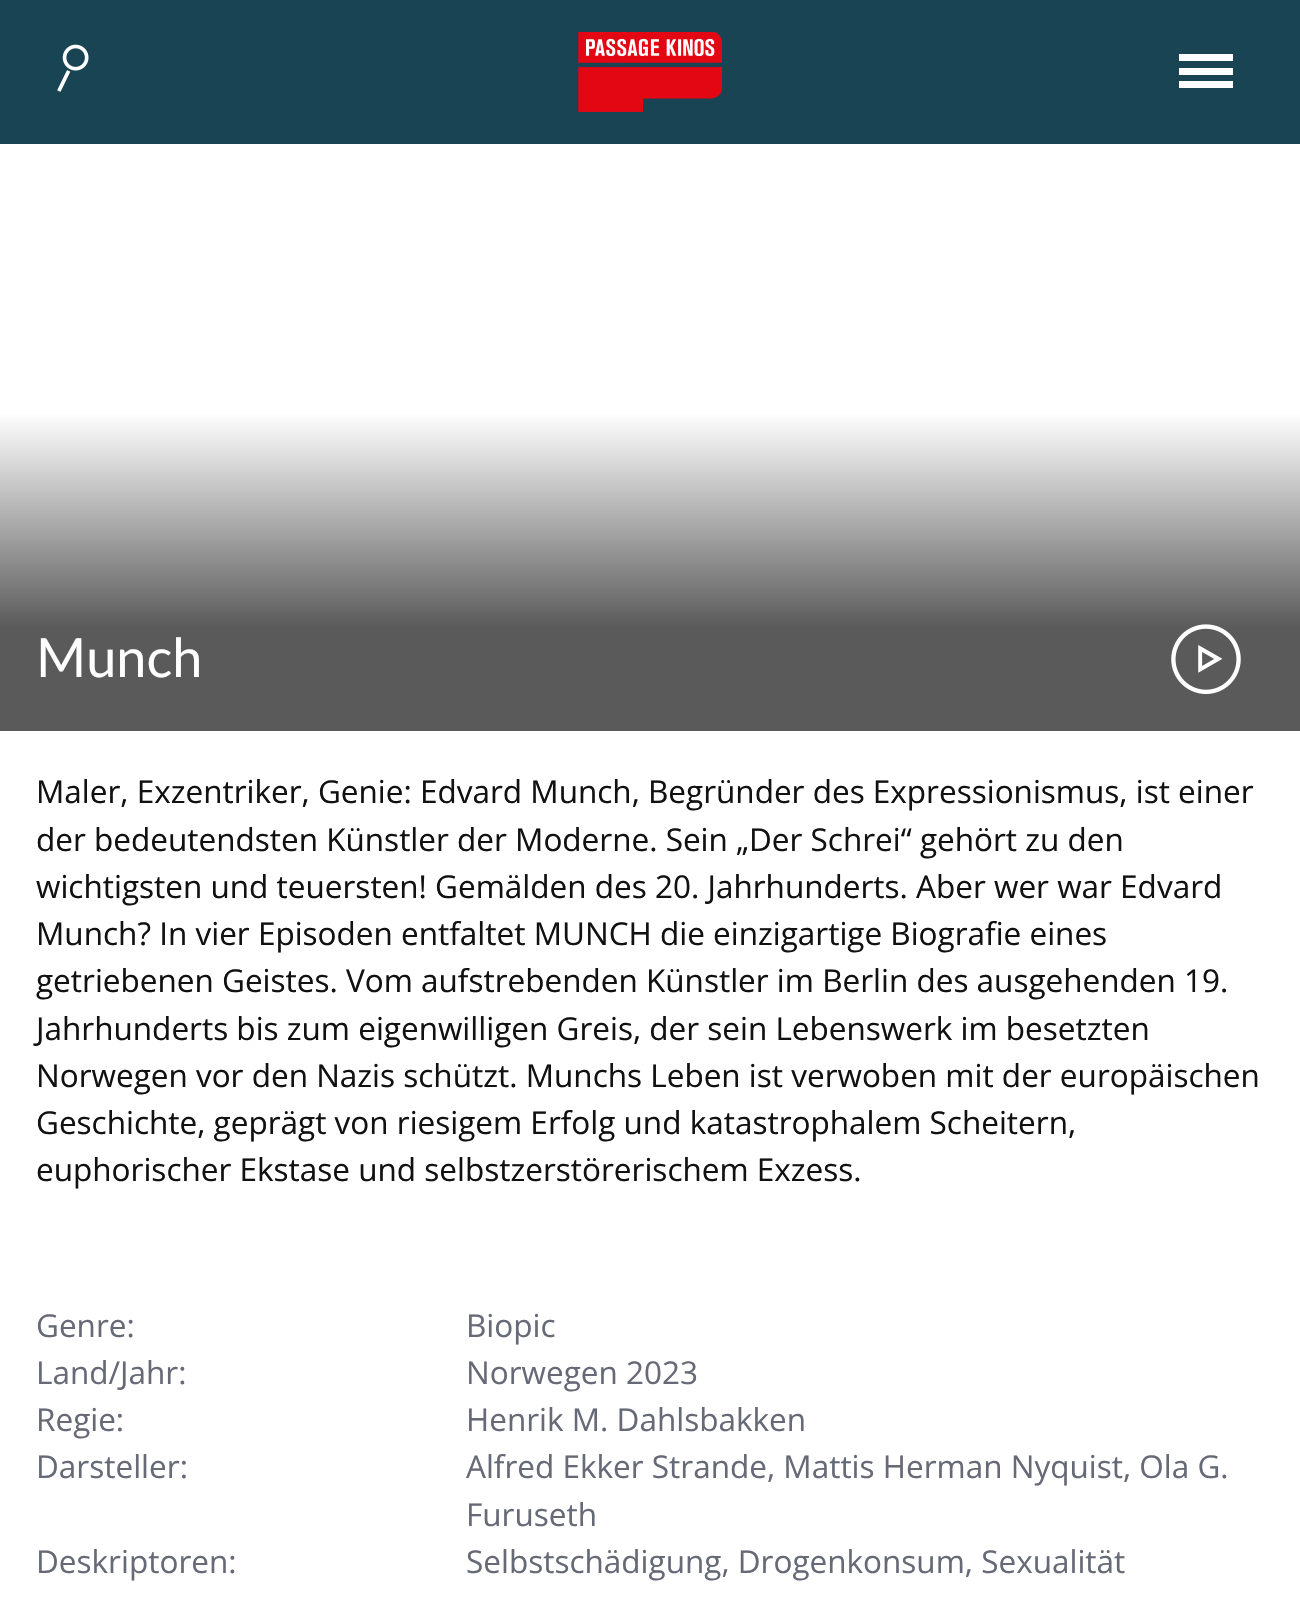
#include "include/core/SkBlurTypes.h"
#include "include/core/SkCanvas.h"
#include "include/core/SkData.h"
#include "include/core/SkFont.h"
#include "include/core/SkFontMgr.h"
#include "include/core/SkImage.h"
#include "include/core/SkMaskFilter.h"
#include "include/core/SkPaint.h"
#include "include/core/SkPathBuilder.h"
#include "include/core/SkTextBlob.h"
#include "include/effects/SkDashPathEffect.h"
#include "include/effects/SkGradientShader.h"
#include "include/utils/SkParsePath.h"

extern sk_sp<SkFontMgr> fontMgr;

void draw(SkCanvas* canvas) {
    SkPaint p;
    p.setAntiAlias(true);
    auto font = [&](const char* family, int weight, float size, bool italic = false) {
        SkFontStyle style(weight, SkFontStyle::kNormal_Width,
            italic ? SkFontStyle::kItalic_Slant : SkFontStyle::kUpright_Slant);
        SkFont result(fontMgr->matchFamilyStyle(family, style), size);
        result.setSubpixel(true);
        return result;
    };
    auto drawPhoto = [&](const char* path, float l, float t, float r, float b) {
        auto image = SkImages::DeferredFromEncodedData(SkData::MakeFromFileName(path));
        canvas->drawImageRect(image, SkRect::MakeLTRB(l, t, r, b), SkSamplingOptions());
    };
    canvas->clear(0xFFFFFFFF);
    p.setColor(0xFF194454);
    canvas->drawRect(SkRect::MakeLTRB(0, 0, 1300, 144), p);
    drawPhoto("media/1.png", 578, 32, 722, 112);
    drawPhoto("media/2.png", 57, 44, 89, 92);
    {
        const struct { float l, t, r, b; SkColor color; } items[] = {
            {1179, 68, 1233, 75, 0xFFFFFFFF},
            {1179, 54, 1233, 61, 0xFFFFFFFF},
            {1179, 81, 1233, 88, 0xFFFFFFFF},
        };
        for (auto [l, t, r, b, color] : items) {
            p.setColor(color);
            canvas->drawRect(SkRect::MakeLTRB(l, t, r, b), p);
        }
    }
    {
        const SkColor colors[] = {0xFFFFFFFF, 0xFF5A5A5A, 0xFF5A5A5A};
        const float stops[] = {0, 0.68f, 1};
        const SkPoint ends[] = {{650, 412}, {650, 731}};
        p.setShader(SkGradientShader::MakeLinear(ends, colors, stops, 3, SkTileMode::kClamp));
        p.setAlpha(255);
    }
    canvas->drawRect(SkRect::MakeLTRB(0, 415, 1300, 731), p);
    auto font1 = font("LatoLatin", 400, 54);
    p.setShader(nullptr);
    p.setColor(0xFFFFFFFF);
    canvas->drawString("Munch", 36, 677, font1, p);
    drawPhoto("media/3.png", 1171, 624, 1241, 694);
    auto font2 = font("Open Sans", 400, 31.5f);
    p.setColor(0xFF111111);
    {
        const struct { const char* s; float x, y; } items[] = {
            {"Maler, Exzentriker, Genie: Edvard Munch, Begründer des Expressionismus, ist einer", 36, 803},
            {"der bedeutendsten Künstler der Moderne. Sein „Der Schrei“ gehört zu den", 36, 851},
            {"wichtigsten und teuersten! Gemälden des 20. Jahrhunderts. Aber wer war Edvard", 36, 898},
            {"Munch? In vier Episoden entfaltet MUNCH die einzigartige Biografie eines", 36, 945},
            {"getriebenen Geistes. Vom aufstrebenden Künstler im Berlin des ausgehenden 19.", 36, 992},
            {"Jahrhunderts bis zum eigenwilligen Greis, der sein Lebenswerk im besetzten", 36, 1040},
            {"Norwegen vor den Nazis schützt. Munchs Leben ist verwoben mit der europäischen", 36, 1087},
            {"Geschichte, geprägt von riesigem Erfolg und katastrophalem Scheitern,", 36, 1134},
            {"euphorischer Ekstase und selbstzerstörerischem Exzess.", 36, 1181},
        };
        for (auto [s, x, y] : items) {
            canvas->drawString(s, x, y, font2, p);
        }
    }
    p.setColor(0xFF666A76);
    {
        const struct { const char* s; float x, y; } items[] = {
            {"Genre:", 36, 1337},
            {"Biopic", 466, 1337},
            {"Land/Jahr:", 36, 1384},
            {"Norwegen 2023", 466, 1384},
            {"Regie:", 36, 1431},
            {"Henrik M. Dahlsbakken", 466, 1431},
            {"Darsteller:", 36, 1478},
            {"Alfred Ekker Strande, Mattis Herman Nyquist, Ola G.", 466, 1478},
            {"Furuseth", 466, 1526},
            {"Deskriptoren:", 36, 1573},
            {"Selbstschädigung, Drogenkonsum, Sexualität", 466, 1573},
        };
        for (auto [s, x, y] : items) {
            canvas->drawString(s, x, y, font2, p);
        }
    }
}
